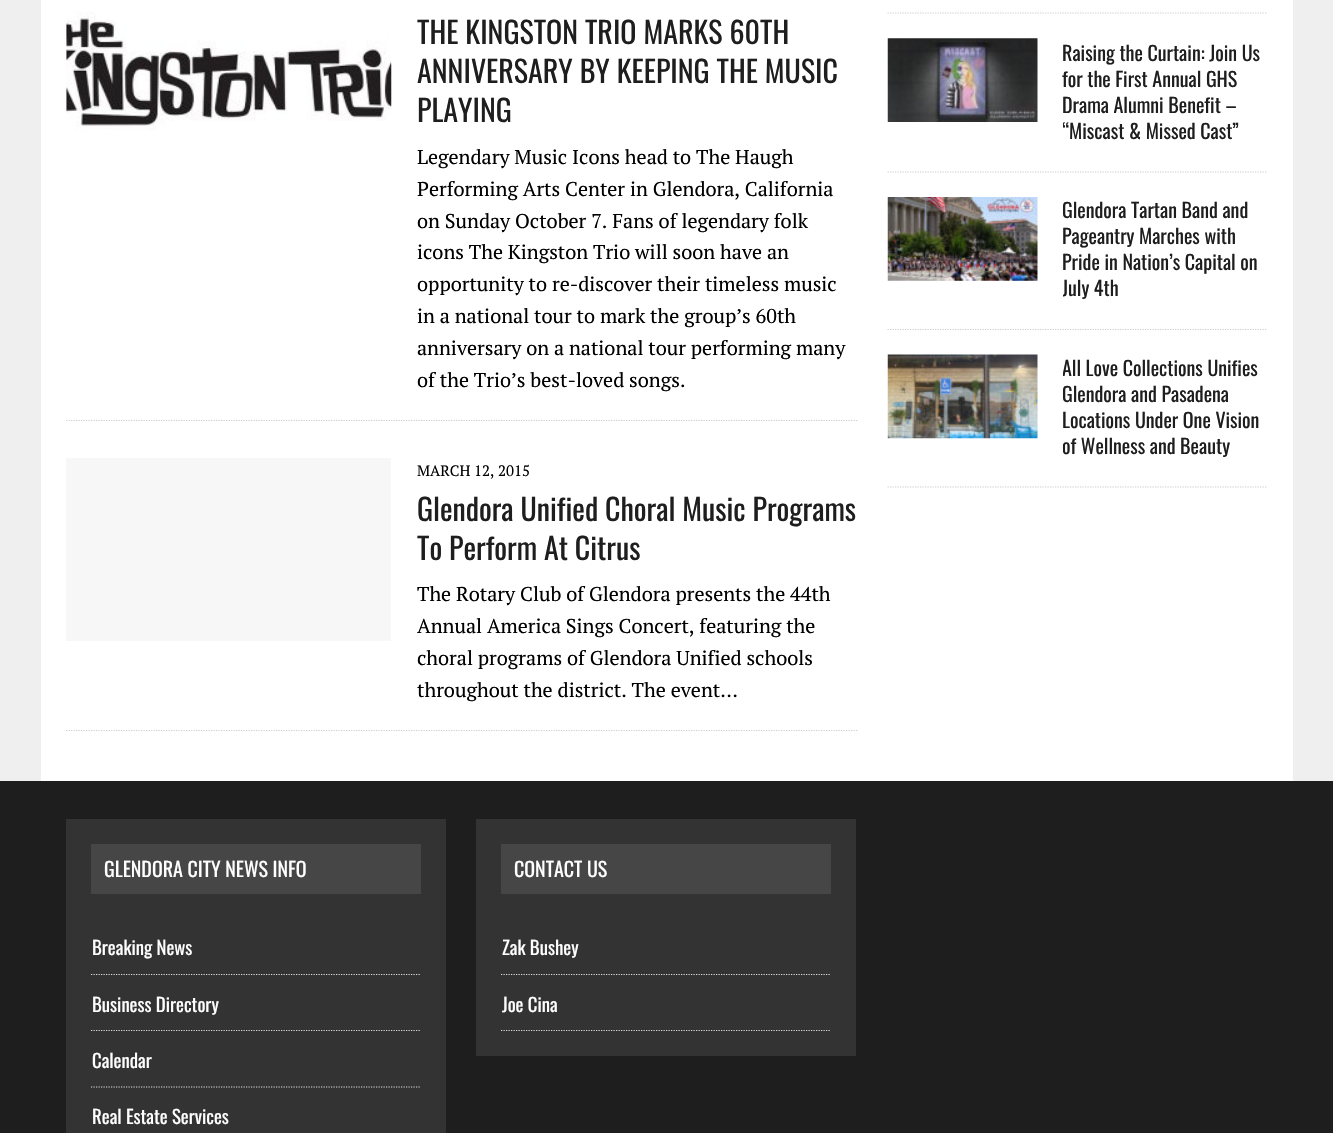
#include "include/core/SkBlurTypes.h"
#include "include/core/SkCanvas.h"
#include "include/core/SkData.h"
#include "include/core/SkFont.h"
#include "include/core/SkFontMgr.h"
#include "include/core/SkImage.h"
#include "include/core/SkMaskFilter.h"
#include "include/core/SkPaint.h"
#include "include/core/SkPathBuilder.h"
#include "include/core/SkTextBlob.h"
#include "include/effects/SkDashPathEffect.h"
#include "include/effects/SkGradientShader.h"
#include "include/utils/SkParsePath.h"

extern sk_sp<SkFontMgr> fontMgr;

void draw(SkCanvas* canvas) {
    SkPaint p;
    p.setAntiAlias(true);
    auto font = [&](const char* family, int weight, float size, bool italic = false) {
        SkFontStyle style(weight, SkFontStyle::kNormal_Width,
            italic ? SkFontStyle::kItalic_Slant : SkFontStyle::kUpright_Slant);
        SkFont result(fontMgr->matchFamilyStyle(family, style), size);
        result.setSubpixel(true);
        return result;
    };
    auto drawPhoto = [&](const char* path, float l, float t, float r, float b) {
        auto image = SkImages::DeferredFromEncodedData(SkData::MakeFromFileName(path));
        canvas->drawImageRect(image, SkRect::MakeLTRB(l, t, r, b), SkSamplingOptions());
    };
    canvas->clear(0xFFEFEFEF);
    p.setColor(0xFFFFFFFF);
    canvas->drawRect(SkRect::MakeLTRB(41, 0, 1293, 781), p);
    drawPhoto("media/1.png", 66, 11, 392, 131);
    auto font1 = font("Oswald", 400, 30);
    p.setColor(0xFF1F1E1E);
    {
        const struct { const char* s; float x, y; } items[] = {
            {"THE KINGSTON TRIO MARKS 60TH", 417, 44},
            {"ANNIVERSARY BY KEEPING THE MUSIC", 417, 83},
            {"PLAYING", 417, 122},
        };
        for (auto [s, x, y] : items) {
            canvas->drawString(s, x, y, font1, p);
        }
    }
    auto font2 = font("PT Serif", 400, 20);
    p.setColor(0xFF000000);
    {
        const struct { const char* s; float x, y; } items[] = {
            {"Legendary Music Icons head to The Haugh", 417, 164},
            {"Performing Arts Center in Glendora, California", 417, 196},
            {"on Sunday October 7. Fans of legendary folk", 417, 228},
            {"icons The Kingston Trio will soon have an", 417, 259},
            {"opportunity to re-discover their timeless music", 417, 291},
            {"in a national tour to mark the group’s 60th", 417, 323},
            {"anniversary on a national tour performing many", 417, 355},
            {"of the Trio’s best-loved songs.", 417, 387},
        };
        for (auto [s, x, y] : items) {
            canvas->drawString(s, x, y, font2, p);
        }
    }
    p.setStyle(SkPaint::kStroke_Style);
    p.setStrokeWidth(1.2f);
    p.setColor(0xFFCDCDCD);
    p.setPathEffect(SkDashPathEffect::Make({{1.25f, 1.25f}}, 0));
    canvas->drawPath(SkPathBuilder().moveTo(66, 420.5f).lineTo(857.5f, 420.5f).detach(), p);
    p.setPathEffect(nullptr);
    p.setStyle(SkPaint::kFill_Style);
    p.setColor(0xFFF7F7F7);
    canvas->drawRect(SkRect::MakeLTRB(66, 458, 391, 641), p);
    auto font3 = font("PT Serif", 400, 15);
    p.setColor(0xFF000000);
    canvas->drawString("MARCH 12, 2015", 417, 476, font3, p);
    p.setColor(0xFF1F1E1E);
    canvas->drawString("Glendora Unified Choral Music Programs", 417, 521, font1, p);
    canvas->drawString("To Perform At Citrus", 417, 560, font1, p);
    p.setColor(0xFF000000);
    {
        const struct { const char* s; float x, y; } items[] = {
            {"The Rotary Club of Glendora presents the 44th", 417, 601},
            {"Annual America Sings Concert, featuring the", 417, 633},
            {"choral programs of Glendora Unified schools", 417, 665},
            {"throughout the district. The event…", 417, 697},
        };
        for (auto [s, x, y] : items) {
            canvas->drawString(s, x, y, font2, p);
        }
    }
    p.setStyle(SkPaint::kStroke_Style);
    p.setColor(0xFFCDCDCD);
    p.setPathEffect(SkDashPathEffect::Make({{1.25f, 1.25f}}, 0));
    canvas->drawPath(SkPathBuilder().moveTo(66, 730.5f).lineTo(857.5f, 730.5f).detach(), p);
    p.setPathEffect(nullptr);
    p.setPathEffect(SkDashPathEffect::Make({{1.25f, 1.25f}}, 0));
    canvas->drawPath(SkPathBuilder().moveTo(887.5f, 13).lineTo(1267.5f, 13).detach(), p);
    p.setPathEffect(nullptr);
    drawPhoto("media/2.png", 887, 38, 1038, 122);
    auto font4 = font("Oswald", 400, 20);
    p.setStyle(SkPaint::kFill_Style);
    p.setColor(0xFF1F1E1E);
    {
        const struct { const char* s; float x, y; } items[] = {
            {"Raising the Curtain: Join Us", 1062, 61},
            {"for the First Annual GHS", 1062, 87},
            {"Drama Alumni Benefit –", 1062, 113},
        };
        for (auto [s, x, y] : items) {
            canvas->drawString(s, x, y, font4, p);
        }
    }
    canvas->save();
    canvas->clipRect(SkRect::MakeLTRB(1063, 39, 1268, 144));
    canvas->drawString("“Miscast & Missed Cast”", 1062, 139, font4, p);
    canvas->restore();
    p.setStyle(SkPaint::kStroke_Style);
    p.setColor(0xFFCDCDCD);
    p.setPathEffect(SkDashPathEffect::Make({{1.25f, 1.25f}}, 0));
    canvas->drawPath(SkPathBuilder().moveTo(887.5f, 172).lineTo(1267.5f, 172).detach(), p);
    p.setPathEffect(nullptr);
    drawPhoto("media/3.png", 887, 197, 1038, 281);
    canvas->save();
    canvas->clipRect(SkRect::MakeLTRB(1063, 198, 1268, 301));
    p.setStyle(SkPaint::kFill_Style);
    p.setColor(0xFF1F1E1E);
    canvas->drawString("Glendora Tartan Band and", 1062, 218, font4, p);
    canvas->restore();
    canvas->drawString("Pageantry Marches with", 1062, 244, font4, p);
    canvas->drawString("Pride in Nation’s Capital on", 1062, 270, font4, p);
    canvas->save();
    canvas->clipRect(SkRect::MakeLTRB(1063, 198, 1268, 301));
    canvas->drawString("July 4th", 1062, 296, font4, p);
    canvas->restore();
    p.setStyle(SkPaint::kStroke_Style);
    p.setColor(0xFFCDCDCD);
    p.setPathEffect(SkDashPathEffect::Make({{1.25f, 1.25f}}, 0));
    canvas->drawPath(SkPathBuilder().moveTo(887.5f, 329.5f).lineTo(1267.5f, 329.5f).detach(), p);
    p.setPathEffect(nullptr);
    drawPhoto("media/4.png", 887, 354, 1038, 439);
    canvas->save();
    canvas->clipRect(SkRect::MakeLTRB(1063, 355, 1268, 459));
    p.setStyle(SkPaint::kFill_Style);
    p.setColor(0xFF1F1E1E);
    canvas->drawString("All Love Collections Unifies", 1062, 376, font4, p);
    canvas->drawString("Glendora and Pasadena", 1062, 402, font4, p);
    canvas->restore();
    canvas->drawString("Locations Under One Vision", 1062, 428, font4, p);
    canvas->save();
    canvas->clipRect(SkRect::MakeLTRB(1063, 355, 1268, 459));
    canvas->drawString("of Wellness and Beauty", 1062, 454, font4, p);
    canvas->restore();
    p.setStyle(SkPaint::kStroke_Style);
    p.setColor(0xFFCDCDCD);
    p.setPathEffect(SkDashPathEffect::Make({{1.25f, 1.25f}}, 0));
    canvas->drawPath(SkPathBuilder().moveTo(887.5f, 487).lineTo(1267.5f, 487).detach(), p);
    p.setPathEffect(nullptr);
    p.setStyle(SkPaint::kFill_Style);
    {
        const struct { float l, t, r, b; SkColor color; } items[] = {
            {0, 781, 1333, 1133, 0xFF1F1E1E},
            {66, 819, 446, 1133, 0xFF333333},
            {91, 844, 421, 894, 0xFF464646},
        };
        for (auto [l, t, r, b, color] : items) {
            p.setColor(color);
            canvas->drawRect(SkRect::MakeLTRB(l, t, r, b), p);
        }
    }
    p.setColor(0xFFFFFFFF);
    canvas->drawString("GLENDORA CITY NEWS INFO", 104, 877, font4, p);
    p.setStyle(SkPaint::kStroke_Style);
    p.setColor(0xFFDCDCDC);
    p.setPathEffect(SkDashPathEffect::Make({{1.25f, 1.25f}}, 0));
    canvas->drawPath(SkPathBuilder().moveTo(91, 974.5f).lineTo(421, 974.5f).detach(), p);
    p.setPathEffect(nullptr);
    auto font5 = font("Oswald", 400, 18.75f);
    p.setStyle(SkPaint::kFill_Style);
    p.setColor(0xFFFFFFFF);
    canvas->drawString("Breaking News", 92, 955, font5, p);
    p.setStyle(SkPaint::kStroke_Style);
    p.setColor(0xFFDCDCDC);
    p.setPathEffect(SkDashPathEffect::Make({{1.25f, 1.25f}}, 0));
    canvas->drawPath(SkPathBuilder().moveTo(91, 1030.5f).lineTo(421, 1030.5f).detach(), p);
    p.setPathEffect(nullptr);
    p.setStyle(SkPaint::kFill_Style);
    p.setColor(0xFFFFFFFF);
    canvas->drawString("Business Directory", 92, 1012, font5, p);
    p.setStyle(SkPaint::kStroke_Style);
    p.setColor(0xFFDCDCDC);
    p.setPathEffect(SkDashPathEffect::Make({{1.25f, 1.25f}}, 0));
    canvas->drawPath(SkPathBuilder().moveTo(91, 1087).lineTo(421, 1087).detach(), p);
    p.setPathEffect(nullptr);
    p.setStyle(SkPaint::kFill_Style);
    p.setColor(0xFFFFFFFF);
    canvas->drawString("Calendar", 92, 1068, font5, p);
    canvas->drawString("Real Estate Services", 92, 1124, font5, p);
    p.setColor(0xFF333333);
    canvas->drawRect(SkRect::MakeLTRB(476, 819, 856, 1056), p);
    p.setColor(0xFF464646);
    canvas->drawRect(SkRect::MakeLTRB(501, 844, 831, 894), p);
    p.setColor(0xFFFFFFFF);
    canvas->drawString("CONTACT US", 514, 877, font4, p);
    p.setStyle(SkPaint::kStroke_Style);
    p.setColor(0xFFDCDCDC);
    p.setPathEffect(SkDashPathEffect::Make({{1.25f, 1.25f}}, 0));
    canvas->drawPath(SkPathBuilder().moveTo(501, 974.5f).lineTo(831, 974.5f).detach(), p);
    p.setPathEffect(nullptr);
    p.setStyle(SkPaint::kFill_Style);
    p.setColor(0xFFFFFFFF);
    canvas->drawString("Zak Bushey", 502, 955, font5, p);
    canvas->save();
    canvas->clipRect(SkRect::MakeLTRB(501, 844, 831, 1031));
    p.setStyle(SkPaint::kStroke_Style);
    p.setColor(0xFFDCDCDC);
    p.setPathEffect(SkDashPathEffect::Make({{1.25f, 1.25f}}, 0));
    canvas->drawPath(SkPathBuilder().moveTo(501, 1030.5f).lineTo(831, 1030.5f).detach(), p);
    p.setPathEffect(nullptr);
    canvas->restore();
    p.setStyle(SkPaint::kFill_Style);
    p.setColor(0xFFFFFFFF);
    canvas->drawString("Joe Cina", 502, 1012, font5, p);
}
